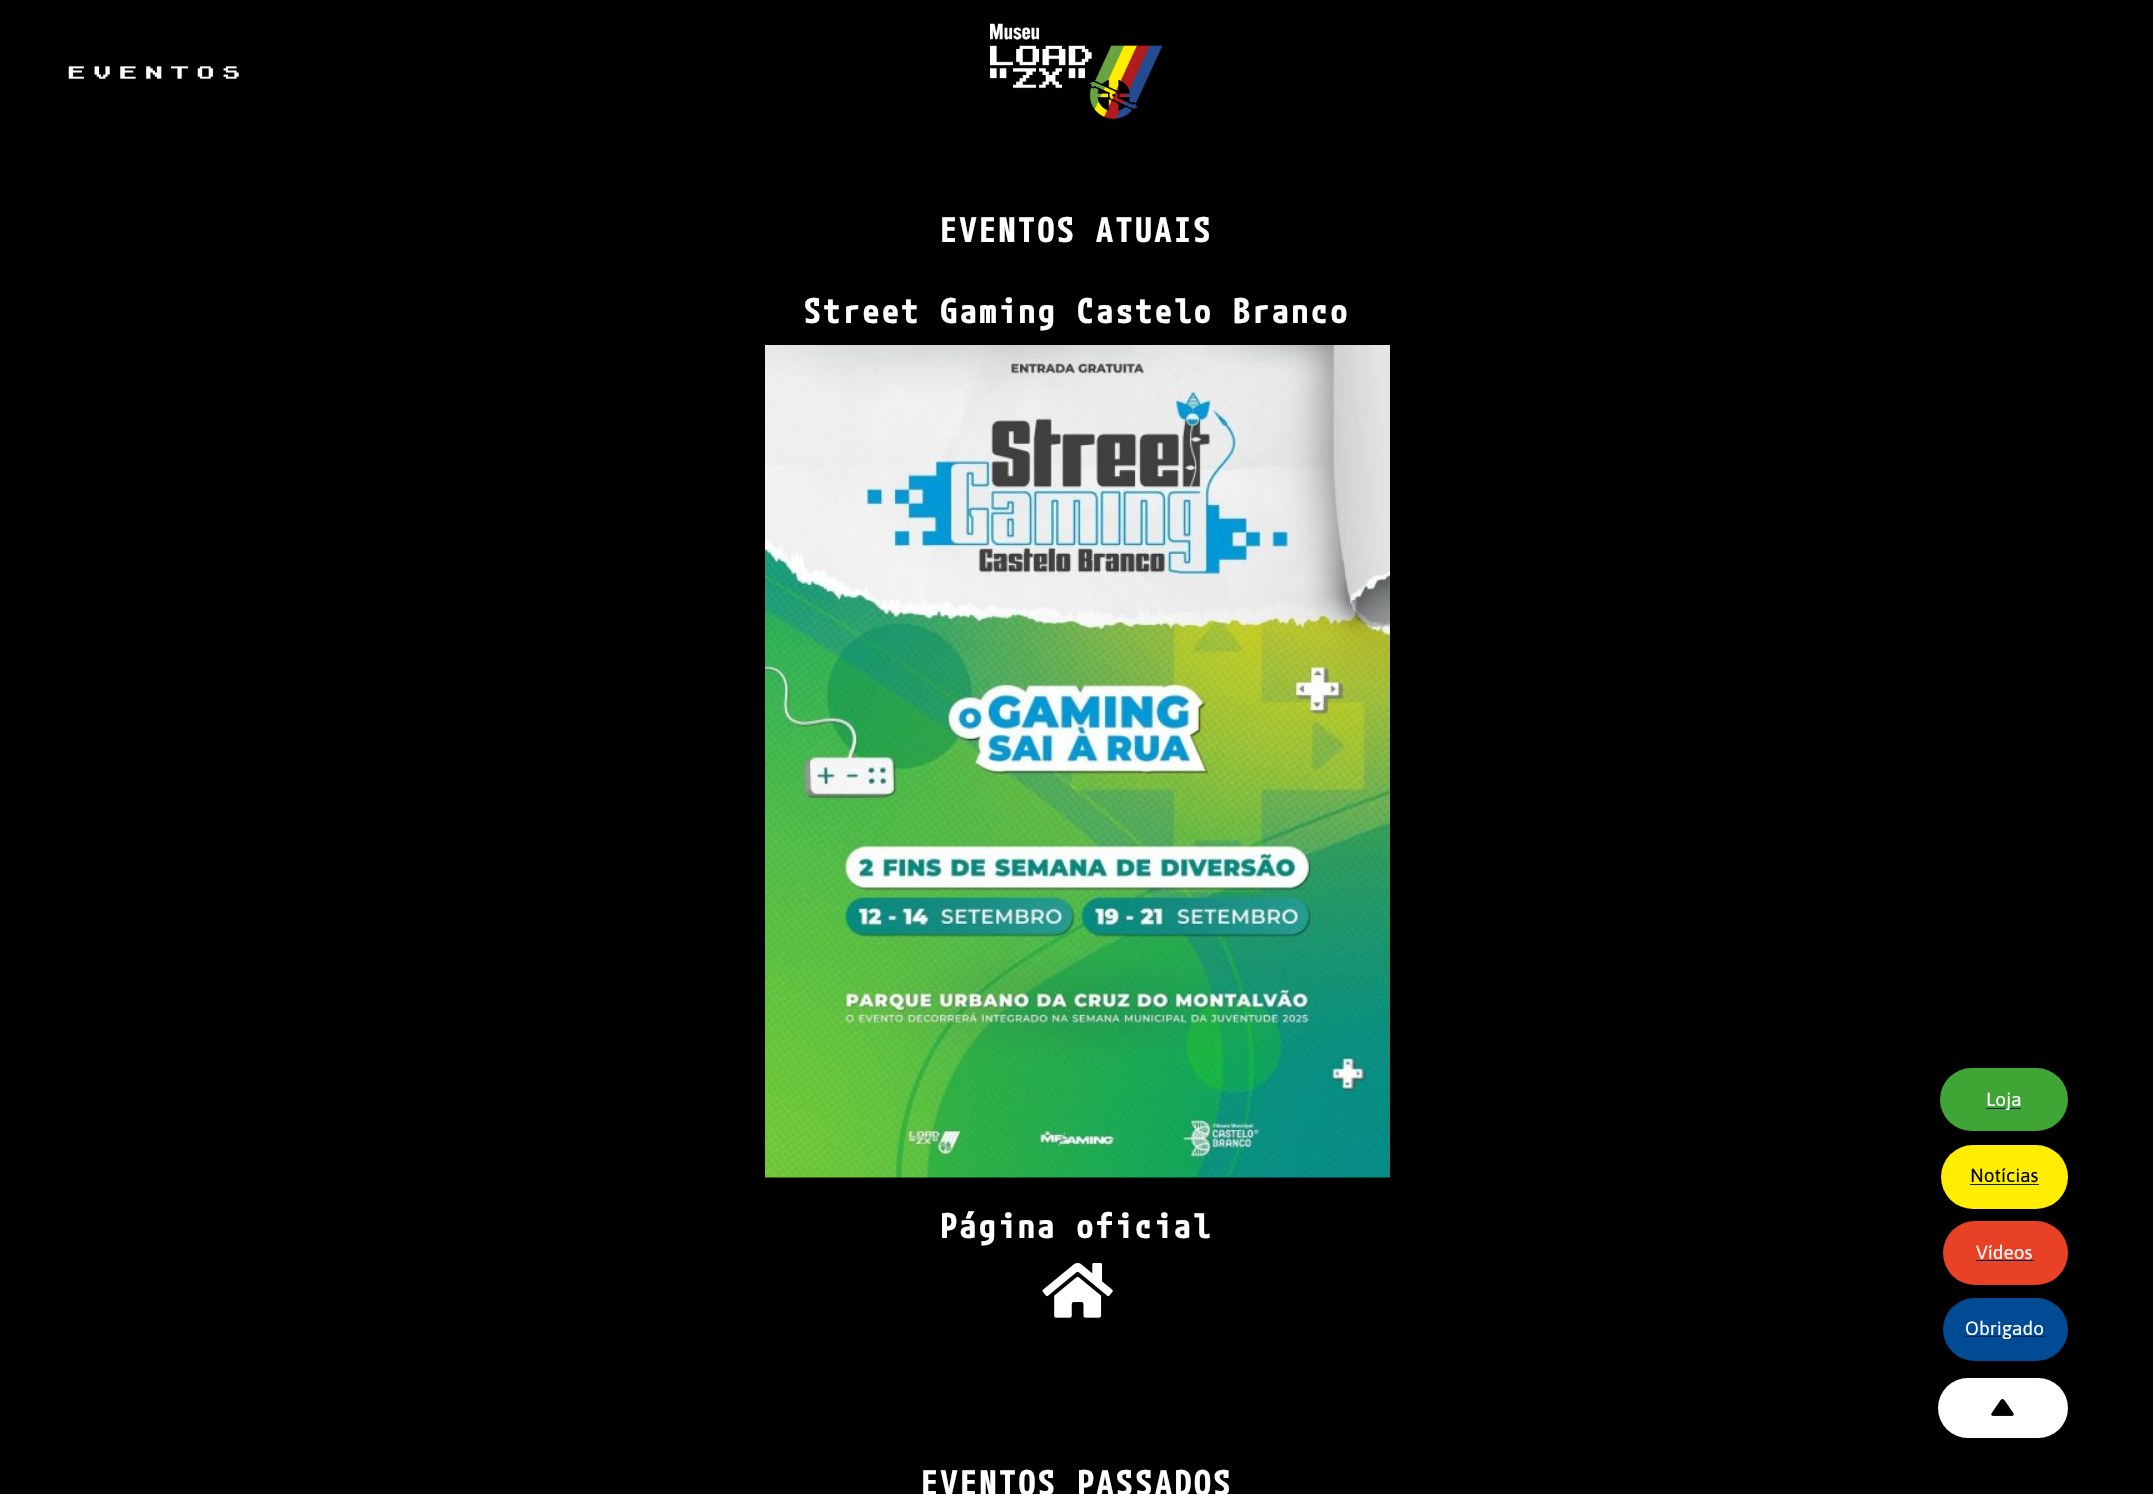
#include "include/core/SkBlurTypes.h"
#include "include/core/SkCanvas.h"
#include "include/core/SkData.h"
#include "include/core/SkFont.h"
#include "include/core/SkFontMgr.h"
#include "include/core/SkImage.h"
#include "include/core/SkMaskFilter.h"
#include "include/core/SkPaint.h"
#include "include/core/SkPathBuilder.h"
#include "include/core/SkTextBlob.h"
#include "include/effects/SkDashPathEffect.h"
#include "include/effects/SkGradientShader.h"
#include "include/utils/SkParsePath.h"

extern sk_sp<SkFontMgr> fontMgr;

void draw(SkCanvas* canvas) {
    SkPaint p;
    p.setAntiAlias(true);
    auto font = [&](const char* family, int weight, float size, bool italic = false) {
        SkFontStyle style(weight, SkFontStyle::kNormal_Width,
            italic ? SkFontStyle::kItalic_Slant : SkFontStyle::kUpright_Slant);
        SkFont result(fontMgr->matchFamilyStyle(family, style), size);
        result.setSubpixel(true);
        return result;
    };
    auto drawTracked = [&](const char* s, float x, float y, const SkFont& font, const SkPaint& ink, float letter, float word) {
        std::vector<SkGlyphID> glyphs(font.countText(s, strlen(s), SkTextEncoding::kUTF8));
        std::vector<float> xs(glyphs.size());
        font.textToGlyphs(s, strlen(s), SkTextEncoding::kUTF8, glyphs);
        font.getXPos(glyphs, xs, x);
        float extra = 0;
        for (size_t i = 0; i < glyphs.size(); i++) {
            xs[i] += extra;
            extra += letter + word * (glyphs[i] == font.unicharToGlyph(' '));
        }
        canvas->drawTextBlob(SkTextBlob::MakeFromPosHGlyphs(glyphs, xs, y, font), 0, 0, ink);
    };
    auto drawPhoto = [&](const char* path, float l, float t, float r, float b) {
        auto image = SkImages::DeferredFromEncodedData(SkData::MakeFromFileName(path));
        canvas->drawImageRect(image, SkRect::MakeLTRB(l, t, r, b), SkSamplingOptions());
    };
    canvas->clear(0xFF000000);
    auto font1 = font("M PLUS 1 Code", 700, 34);
    p.setColor(0xFFFFFFFF);
    drawTracked("EVENTOS ATUAIS", 940, 242, font1, p, 2.5f, 0);
    drawTracked("Street Gaming Castelo Branco", 804, 323, font1, p, 2.5f, 0);
    drawPhoto("media/1.png", 765, 345, 1390, 1178);
    drawTracked("Página oficial", 940, 1238, font1, p, 2.5f, 0);
    drawPhoto("media/2.png", 1042, 1263, 1113, 1318);
    drawPhoto("media/3.png", 68, 66, 239, 79);
    drawPhoto("media/4.png", 990, 23, 1163, 119);
    p.setColor(0xFF3FA535);
    canvas->drawRoundRect(SkRect::MakeLTRB(1940, 1068, 2068, 1131), 31.5f, 31.5f, p);
    p.setColor(0xFF042551);
    canvas->drawRect(SkRect::MakeLTRB(1986, 1108, 2021, 1109), p);
    auto font2 = font("Asap", 400, 19);
    p.setColor(0xFFFFFFFF);
    canvas->drawString("Loja", 1986, 1106, font2, p);
    p.setColor(0xFFFFED00);
    canvas->drawRoundRect(SkRect::MakeLTRB(1941, 1145, 2068, 1209), 32, 32, p);
    p.setColor(0xFF000000);
    canvas->drawString("Notícias", 1970, 1182, font2, p);
    p.setColor(0xFF042551);
    canvas->drawRect(SkRect::MakeLTRB(1970, 1184, 2039, 1185), p);
    p.setColor(0xFFE84125);
    canvas->drawRoundRect(SkRect::MakeLTRB(1943, 1221, 2068, 1285), 32, 32, p);
    p.setColor(0xFFFFFFFF);
    canvas->drawString("Vídeos", 1976, 1259, font2, p);
    p.setColor(0xFF042551);
    canvas->drawRect(SkRect::MakeLTRB(1976, 1260, 2034, 1261), p);
    p.setColor(0xFF014A94);
    canvas->drawRoundRect(SkRect::MakeLTRB(1943, 1298, 2068, 1361), 31.5f, 31.5f, p);
    p.setColor(0xFF042551);
    canvas->drawRect(SkRect::MakeLTRB(1965, 1336, 2045, 1337), p);
    p.setColor(0xFFFFFFFF);
    canvas->drawString("Obrigado", 1965, 1335, font2, p);
    canvas->drawRoundRect(SkRect::MakeLTRB(1938, 1378, 2068, 1438), 30, 30, p);
    drawPhoto("media/5.png", 1991, 1399, 2014, 1416);
    drawTracked("EVENTOS PASSADOS", 921, 1495, font1, p, 2.5f, 0);
}
